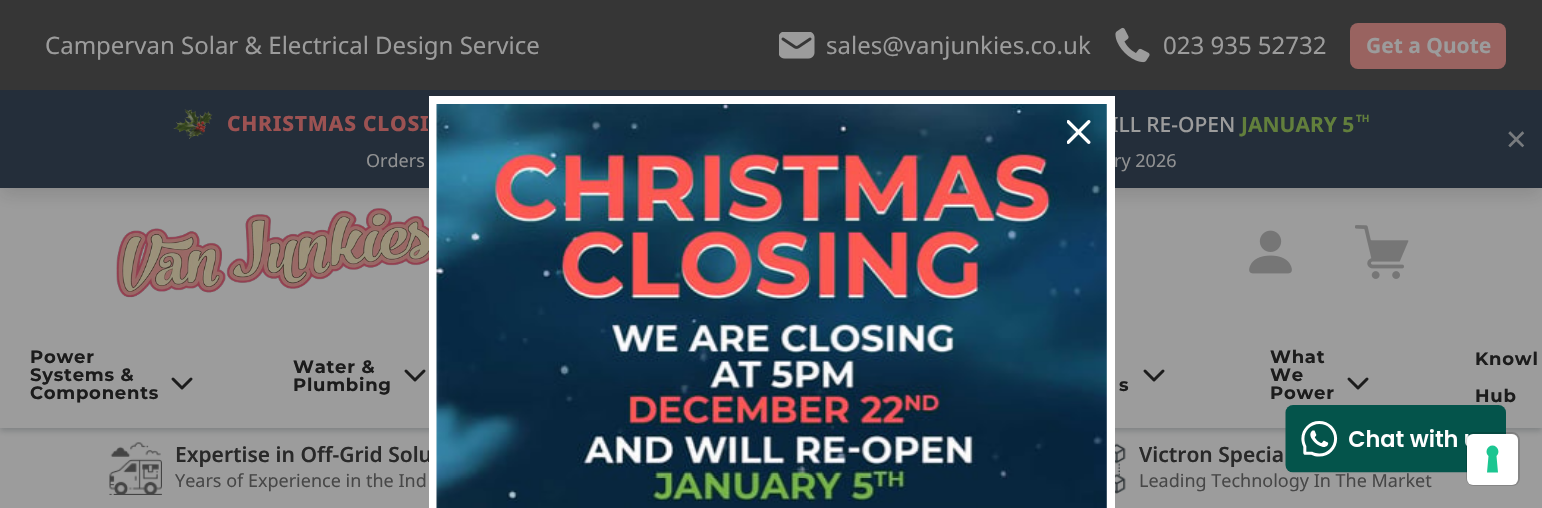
#include "include/core/SkBlurTypes.h"
#include "include/core/SkCanvas.h"
#include "include/core/SkData.h"
#include "include/core/SkFont.h"
#include "include/core/SkFontMgr.h"
#include "include/core/SkImage.h"
#include "include/core/SkMaskFilter.h"
#include "include/core/SkPaint.h"
#include "include/core/SkPathBuilder.h"
#include "include/core/SkTextBlob.h"
#include "include/effects/SkDashPathEffect.h"
#include "include/effects/SkGradientShader.h"
#include "include/utils/SkParsePath.h"

extern sk_sp<SkFontMgr> fontMgr;

void draw(SkCanvas* canvas) {
    SkPaint p;
    p.setAntiAlias(true);
    auto font = [&](const char* family, int weight, float size, bool italic = false) {
        SkFontStyle style(weight, SkFontStyle::kNormal_Width,
            italic ? SkFontStyle::kItalic_Slant : SkFontStyle::kUpright_Slant);
        SkFont result(fontMgr->matchFamilyStyle(family, style), size);
        result.setSubpixel(true);
        return result;
    };
    auto drawTracked = [&](const char* s, float x, float y, const SkFont& font, const SkPaint& ink, float letter, float word) {
        std::vector<SkGlyphID> glyphs(font.countText(s, strlen(s), SkTextEncoding::kUTF8));
        std::vector<float> xs(glyphs.size());
        font.textToGlyphs(s, strlen(s), SkTextEncoding::kUTF8, glyphs);
        font.getXPos(glyphs, xs, x);
        float extra = 0;
        for (size_t i = 0; i < glyphs.size(); i++) {
            xs[i] += extra;
            extra += letter + word * (glyphs[i] == font.unicharToGlyph(' '));
        }
        canvas->drawTextBlob(SkTextBlob::MakeFromPosHGlyphs(glyphs, xs, y, font), 0, 0, ink);
    };
    auto drawPhoto = [&](const char* path, float l, float t, float r, float b) {
        auto image = SkImages::DeferredFromEncodedData(SkData::MakeFromFileName(path));
        canvas->drawImageRect(image, SkRect::MakeLTRB(l, t, r, b), SkSamplingOptions());
    };
    canvas->clear(0xFF9C9C9C);
    p.setColor(0x3D202E34);
    p.setMaskFilter(SkMaskFilter::MakeBlur(kNormal_SkBlurStyle, 3));
    canvas->drawRect(SkRect::MakeLTRB(0, 191, 1542, 431), p);
    p.setMaskFilter(nullptr);
    p.setColor(0xFF9C9C9C);
    canvas->drawRect(SkRect::MakeLTRB(0, 188, 1542, 428), p);
    drawPhoto("media/6.png", 116, 208, 429, 298);
    p.setColor(0x261C1C1C);
    p.setMaskFilter(SkMaskFilter::MakeBlur(kNormal_SkBlurStyle, 9));
    canvas->drawRect(SkRect::MakeLTRB(0, 96, 1542, 194), p);
    p.setMaskFilter(nullptr);
    p.setColor(0xFF363636);
    canvas->drawRect(SkRect::MakeLTRB(0, 0, 1542, 90), p);
    auto font1 = font("Noto Sans", 400, 24);
    p.setColor(0xFF9C9C9C);
    canvas->drawString("Campervan Solar & Electrical Design Service", 45, 54, font1, p);
    drawPhoto("media/1.png", 779, 32, 815, 59);
    canvas->drawString("sales@vanjunkies.co.uk", 826, 54, font1, p);
    drawPhoto("media/2.png", 1115, 27, 1150, 63);
    canvas->drawString("023 935 52732", 1163, 54, font1, p);
    p.setColor(0xFF996360);
    canvas->drawRoundRect(SkRect::MakeLTRB(1350, 23, 1506, 69), 8, 8, p);
    auto font2 = font("Noto Sans", 700, 21);
    p.setColor(0xFF9C9C9C);
    canvas->drawString("Get a Quote", 1366, 53, font2, p);
    p.setColor(0xFF242E3A);
    canvas->drawRect(SkRect::MakeLTRB(0, 90, 1542, 188), p);
    auto font3 = font("Noto Sans", 500, 21);
    p.setColor(0xFF9C9C9C);
    canvas->drawString("ILL RE-OPEN", 1111, 132, font3, p);
    auto font4 = font("Noto Sans", 600, 21);
    p.setColor(0xFF292929);
    canvas->drawString("Expertise in Off-Grid Solu", 175, 462, font4, p);
    p.setColor(0xFFFFFFFF);
    canvas->drawRect(SkRect::MakeLTRB(429, 96, 1115, 508), p);
    drawPhoto("media/3.png", 436, 104, 1107, 508);
    drawPhoto("media/4.png", 1067, 120, 1091, 144);
    drawPhoto("media/5.png", 173, 109, 213, 139);
    auto font5 = font("Noto Sans", 800, 21);
    p.setColor(0xFF9C5252);
    drawTracked("CHRISTMAS CLOSI", 227, 131, font5, p, 0.75f, 0);
    p.setColor(0xFF627F3C);
    canvas->drawString("JANUARY 5", 1241, 132, font2, p);
    auto font6 = font("Noto Sans", 700, 10);
    canvas->drawString("TH", 1356, 122, font6, p);
    auto font7 = font("Noto Sans", 400, 36);
    p.setColor(0xFF787B7E);
    canvas->drawString("×", 1506, 152, font7, p);
    auto font8 = font("Noto Sans", 400, 18);
    p.setColor(0xFF909192);
    canvas->drawString("Orders", 366, 167, font8, p);
    canvas->drawString("ry 2026", 1114, 167, font8, p);
    drawPhoto("media/7.png", 1249, 230, 1292, 274);
    drawPhoto("media/8.png", 1355, 225, 1409, 279);
    auto font9 = font("Montserrat", 700, 18);
    p.setColor(0xFF1C1C1C);
    {
        const struct { const char* s; float x, y; } items[] = {
            {"Power", 30, 363},
            {"Systems &", 30, 381},
            {"Components", 30, 399},
        };
        for (auto [s, x, y] : items) {
            drawTracked(s, x, y, font9, p, 0.75f, 0);
        }
    }
    p.setStyle(SkPaint::kStroke_Style);
    p.setStrokeWidth(3);
    p.setStrokeCap(SkPaint::kRound_Cap);
    p.setStrokeJoin(SkPaint::kRound_Join);
    canvas->drawPath(SkPathBuilder().moveTo(173, 379).lineTo(182, 388).lineTo(191, 379).detach(), p);
    p.setStyle(SkPaint::kFill_Style);
    drawTracked("Water &", 293, 373, font9, p, 0.75f, 0);
    drawTracked("Plumbing", 293, 391, font9, p, 0.75f, 0);
    p.setStyle(SkPaint::kStroke_Style);
    canvas->drawPath(SkPathBuilder().moveTo(406, 371).lineTo(415, 380).lineTo(424, 371).detach(), p);
    canvas->drawPath(SkPathBuilder().moveTo(1145, 371).lineTo(1154, 380).lineTo(1163, 371).detach(), p);
    p.setStyle(SkPaint::kFill_Style);
    {
        const struct { const char* s; float x, y; } items[] = {
            {"s", 1119, 391},
            {"What", 1270, 363},
            {"We", 1270, 381},
            {"Power", 1270, 399},
        };
        for (auto [s, x, y] : items) {
            drawTracked(s, x, y, font9, p, 0.75f, 0);
        }
    }
    p.setStyle(SkPaint::kStroke_Style);
    canvas->drawPath(SkPathBuilder().moveTo(1349, 379).lineTo(1358, 388).lineTo(1367, 379).detach(), p);
    p.setStyle(SkPaint::kFill_Style);
    drawTracked("Knowl", 1475, 365, font9, p, 0.75f, 0);
    drawTracked("Hub", 1475, 402, font9, p, 0.75f, 0);
    drawPhoto("media/9.png", 1285, 405, 1506, 473);
    drawPhoto("media/10.png", 109, 442, 162, 495);
    p.setColor(0xFF474747);
    canvas->drawString("Years of Experience in the Ind", 175, 487, font8, p);
    drawPhoto("media/11.png", 1115, 443, 1126, 494);
    p.setColor(0xFF292929);
    canvas->drawString("Victron Specia", 1139, 462, font4, p);
    p.setColor(0xFF474747);
    canvas->drawString("Leading Technology In The Market", 1139, 487, font8, p);
    p.setStyle(SkPaint::kStroke_Style);
    p.setStrokeWidth(2);
    p.setStrokeCap(SkPaint::kButt_Cap);
    p.setStrokeJoin(SkPaint::kMiter_Join);
    p.setColor(0x26000000);
    canvas->drawRoundRect(SkRect::MakeLTRB(1467, 433, 1519, 485), 7, 7, p);
    p.setStyle(SkPaint::kFill_Style);
    p.setColor(0xFFFFFFFF);
    canvas->drawRoundRect(SkRect::MakeLTRB(1467, 434, 1518, 485), 6, 6, p);
    p.setColor(0xFF1CC691);
    canvas->drawPath(SkPathBuilder(SkPathFillType::kEvenOdd).moveTo(1492.5f, 445.5f).cubicTo(1498, 445.5f, 1500.5f, 452.5f, 1496.5f, 456).lineTo(1498, 472.5f).lineTo(1487, 472.5f).lineTo(1488.5f, 456).cubicTo(1484.5f, 452.5f, 1487, 445.5f, 1492.5f, 445.5f).close().detach(), p);
}
